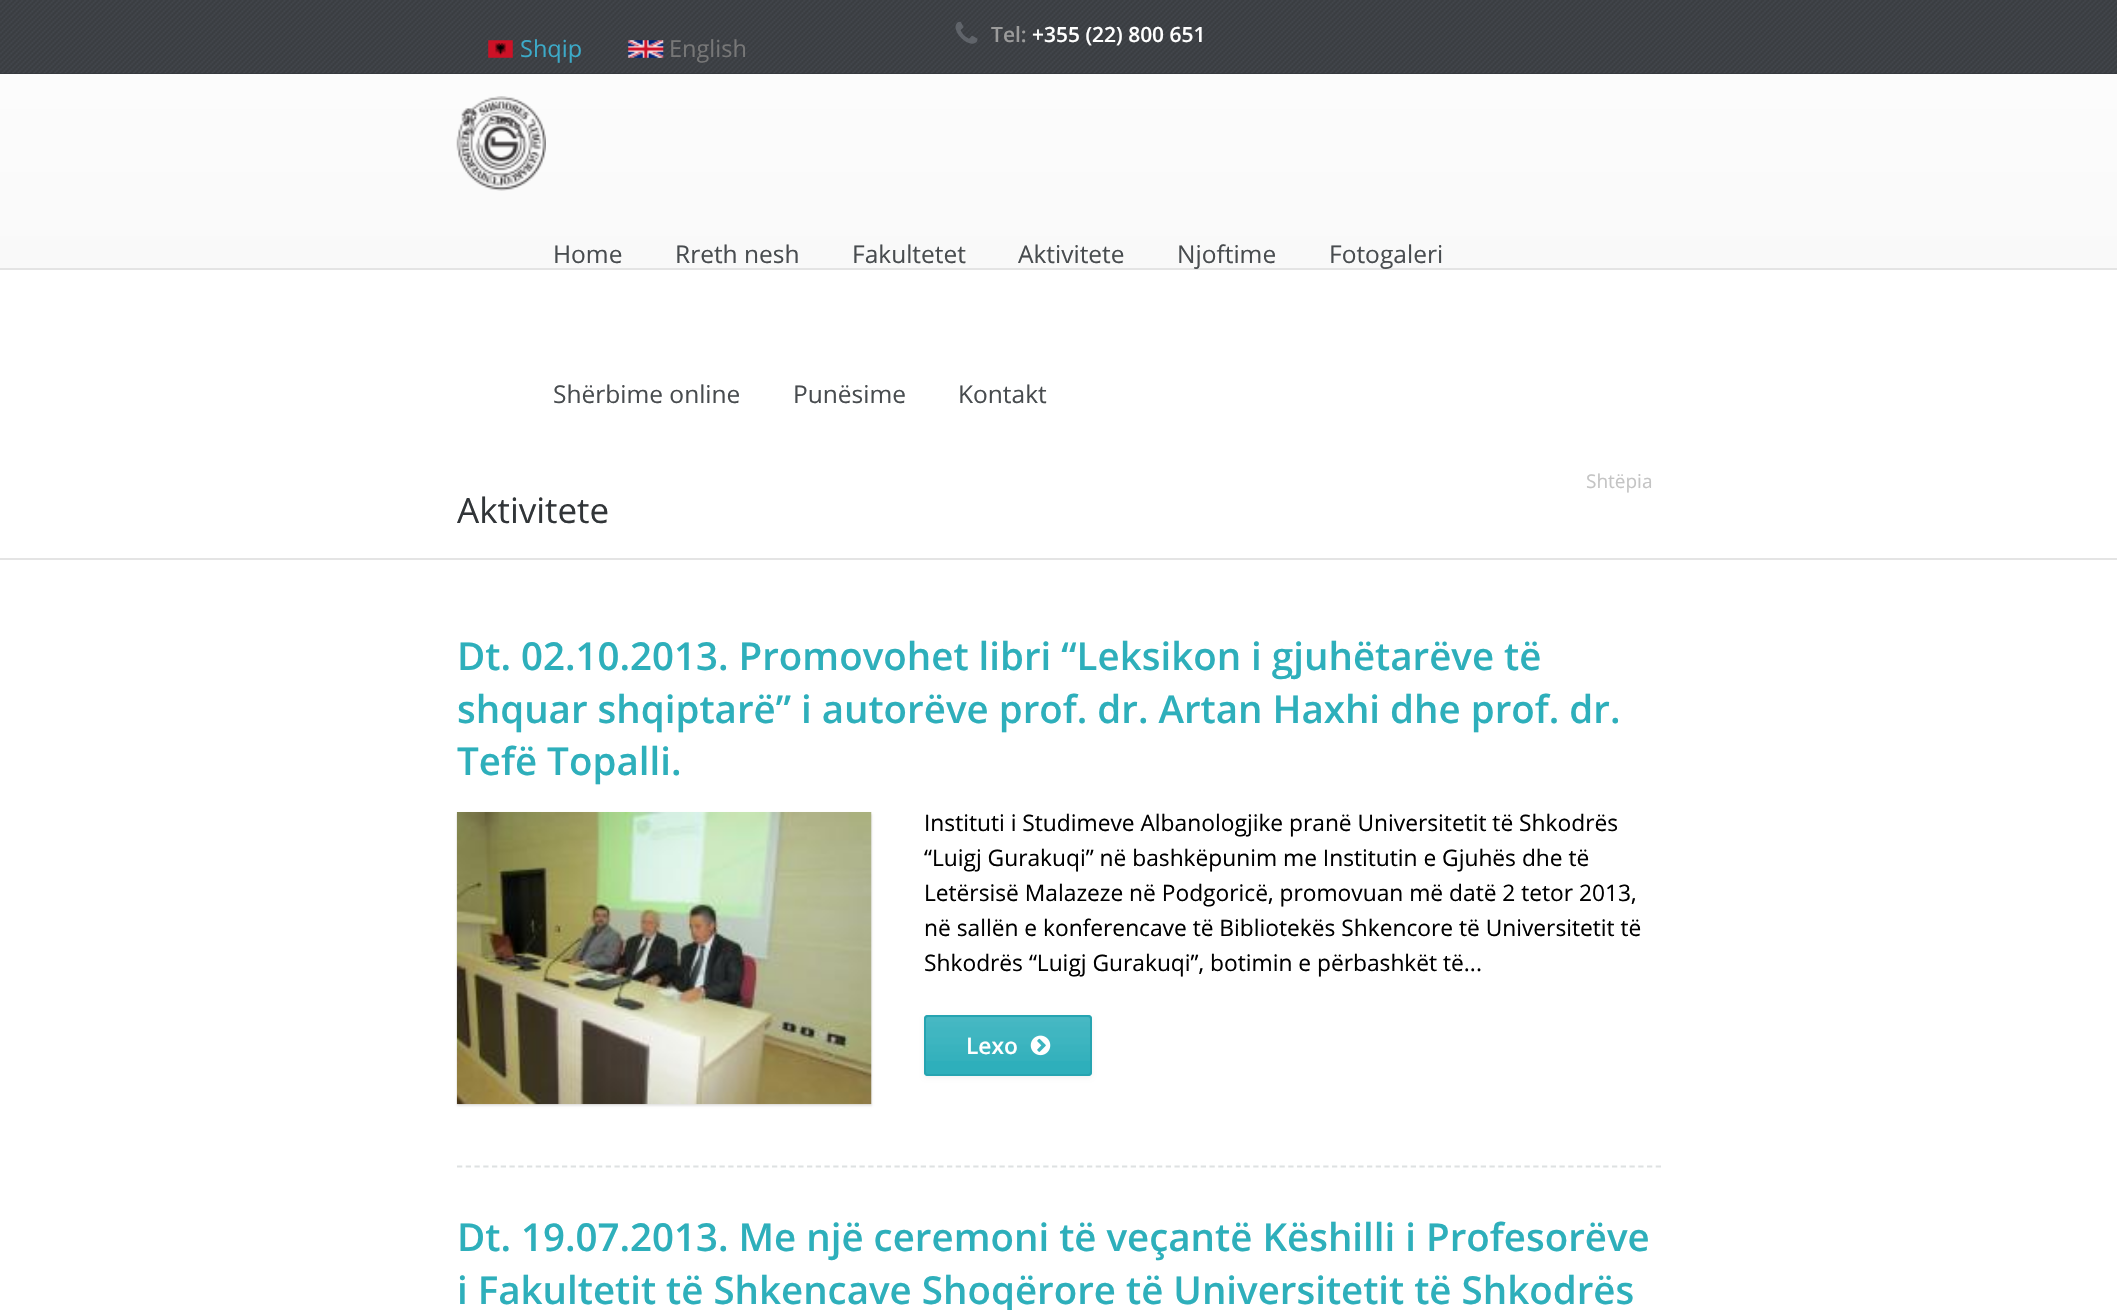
#include "include/core/SkBlurTypes.h"
#include "include/core/SkCanvas.h"
#include "include/core/SkData.h"
#include "include/core/SkFont.h"
#include "include/core/SkFontMgr.h"
#include "include/core/SkImage.h"
#include "include/core/SkMaskFilter.h"
#include "include/core/SkPaint.h"
#include "include/core/SkPathBuilder.h"
#include "include/core/SkTextBlob.h"
#include "include/effects/SkDashPathEffect.h"
#include "include/effects/SkGradientShader.h"
#include "include/utils/SkParsePath.h"

extern sk_sp<SkFontMgr> fontMgr;

void draw(SkCanvas* canvas) {
    SkPaint p;
    p.setAntiAlias(true);
    auto font = [&](const char* family, int weight, float size, bool italic = false) {
        SkFontStyle style(weight, SkFontStyle::kNormal_Width,
            italic ? SkFontStyle::kItalic_Slant : SkFontStyle::kUpright_Slant);
        SkFont result(fontMgr->matchFamilyStyle(family, style), size);
        result.setSubpixel(true);
        return result;
    };
    auto drawPhoto = [&](const char* path, float l, float t, float r, float b) {
        auto image = SkImages::DeferredFromEncodedData(SkData::MakeFromFileName(path));
        canvas->drawImageRect(image, SkRect::MakeLTRB(l, t, r, b), SkSamplingOptions());
    };
    canvas->clear(0xFFFFFFFF);
    p.setColor(0xFF2F3338);
    canvas->drawRect(SkRect::MakeLTRB(0, 73, 2117, 74), p);
    drawPhoto("media/1.png", 0, 0, 2117, 74);
    drawPhoto("media/2.png", 955, 21, 978, 44);
    auto font1 = font("Open Sans", 600, 21);
    p.setColor(0xFF9B9B9B);
    canvas->drawString("Tel:", 991, 42, font1, p);
    p.setColor(0xFFFFFFFF);
    canvas->drawString("+355 (22) 800 651", 1032, 42, font1, p);
    drawPhoto("media/3.png", 488, 40, 513, 58);
    auto font2 = font("Open Sans", 400, 23.5f);
    p.setColor(0xFF3CAAC8);
    canvas->drawString("Shqip", 520, 57, font2, p);
    drawPhoto("media/4.png", 628, 40, 664, 58);
    p.setColor(0xFF777777);
    canvas->drawString("English", 669, 57, font2, p);
    {
        const SkColor colors[] = {0xFFFCFCFC, 0xFFF9F9F9};
        const float stops[] = {0.02f, 1};
        const SkPoint ends[] = {{1059, 73}, {1059, 268}};
        p.setShader(SkGradientShader::MakeLinear(ends, colors, stops, 2, SkTileMode::kClamp));
        p.setAlpha(255);
    }
    canvas->drawRect(SkRect::MakeLTRB(0, 74, 2117, 268), p);
    drawPhoto("media/5.png", 456, 96, 546, 191);
    auto font3 = font("Open Sans", 400, 24.5f);
    p.setShader(nullptr);
    p.setColor(0xFF484C4F);
    {
        const struct { const char* s; float x, y; } items[] = {
            {"Home", 553, 263},
            {"Rreth nesh", 675, 263},
            {"Fakultetet", 852, 263},
            {"Aktivitete", 1018, 263},
        };
        for (auto [s, x, y] : items) {
            canvas->drawString(s, x, y, font3, p);
        }
    }
    p.setColor(0xFFE4E4E4);
    canvas->drawRect(SkRect::MakeLTRB(0, 268, 2117, 270), p);
    p.setColor(0xFF484C4F);
    {
        const struct { const char* s; float x, y; } items[] = {
            {"Njoftime", 1177, 263},
            {"Fotogaleri", 1329, 263},
            {"Shërbime online", 553, 403},
            {"Punësime", 793, 403},
            {"Kontakt", 958, 403},
        };
        for (auto [s, x, y] : items) {
            canvas->drawString(s, x, y, font3, p);
        }
    }
    p.setColor(0xFFE4E4E4);
    canvas->drawRect(SkRect::MakeLTRB(0, 558, 2117, 560), p);
    auto font4 = font("Open Sans", 400, 19);
    p.setColor(0xFFC4C4C4);
    canvas->drawString("Shtëpia", 1586, 488, font4, p);
    auto font5 = font("Open Sans", 400, 35);
    p.setColor(0xFF313538);
    canvas->drawString("Aktivitete", 457, 523, font5, p);
    p.setStyle(SkPaint::kStroke_Style);
    p.setStrokeWidth(1.8f);
    p.setColor(0xFFDEE1E2);
    p.setPathEffect(SkDashPathEffect::Make({{5.25f, 3.5f}}, 0));
    canvas->drawPath(SkPathBuilder().moveTo(457, 1166.5f).lineTo(1661, 1166.5f).detach(), p);
    p.setPathEffect(nullptr);
    auto font6 = font("Open Sans", 600, 38.5f);
    p.setStyle(SkPaint::kFill_Style);
    p.setColor(0xFF2EAFBB);
    {
        const struct { const char* s; float x, y; } items[] = {
            {"Dt. 02.10.2013. Promovohet libri “Leksikon i gjuhëtarëve të", 457, 670},
            {"shquar shqiptarë” i autorëve prof. dr. Artan Haxhi dhe prof. dr.", 457, 723},
            {"Tefë Topalli.", 457, 775},
        };
        for (auto [s, x, y] : items) {
            canvas->drawString(s, x, y, font6, p);
        }
    }
    p.setColor(0x1A000000);
    p.setMaskFilter(SkMaskFilter::MakeBlur(kNormal_SkBlurStyle, 1));
    canvas->drawRect(SkRect::MakeLTRB(457, 814, 872, 1106), p);
    p.setMaskFilter(nullptr);
    drawPhoto("media/6.png", 456, 812, 872, 1105);
    auto font7 = font("Open Sans", 400, 22.75f);
    p.setColor(0xFF000000);
    {
        const struct { const char* s; float x, y; } items[] = {
            {"Instituti i Studimeve Albanologjike pranë Universitetit të Shkodrës", 924, 831},
            {"“Luigj Gurakuqi” në bashkëpunim me Institutin e Gjuhës dhe të", 924, 866},
            {"Letërsisë Malazeze në Podgoricë, promovuan më datë 2 tetor 2013,", 924, 901},
            {"në sallën e konferencave të Bibliotekës Shkencore të Universitetit të", 924, 936},
            {"Shkodrës “Luigj Gurakuqi”, botimin e përbashkët të...", 924, 971},
        };
        for (auto [s, x, y] : items) {
            canvas->drawString(s, x, y, font7, p);
        }
    }
    p.setColor(0x0D000000);
    p.setMaskFilter(SkMaskFilter::MakeBlur(kNormal_SkBlurStyle, 2));
    canvas->drawRoundRect(SkRect::MakeLTRB(924, 1017, 1092, 1078), 4, 4, p);
    p.setMaskFilter(nullptr);
    p.setColor(0xFF2EAFBB);
    canvas->drawRoundRect(SkRect::MakeLTRB(924, 1015, 1092, 1076), 4, 4, p);
    drawPhoto("media/7.png", 924, 1016, 1092, 1061);
    p.setStyle(SkPaint::kStroke_Style);
    p.setStrokeWidth(2);
    p.setColor(0xFF26A4B1);
    canvas->drawRoundRect(SkRect::MakeLTRB(925, 1016, 1091, 1075), 3, 3, p);
    auto font8 = font("Open Sans", 600, 22.75f);
    p.setStyle(SkPaint::kFill_Style);
    p.setColor(0xFFFFFFFF);
    canvas->drawString("Lexo", 966, 1054, font8, p);
    drawPhoto("media/8.png", 1030, 1035, 1051, 1056);
    p.setColor(0xFF2EAFBB);
    canvas->drawString("Dt. 19.07.2013. Me një ceremoni të veçantë Këshilli i Profesorëve", 457, 1251, font6, p);
    canvas->drawString("i Fakultetit të Shkencave Shoqërore të Universitetit të Shkodrës", 457, 1304, font6, p);
}
